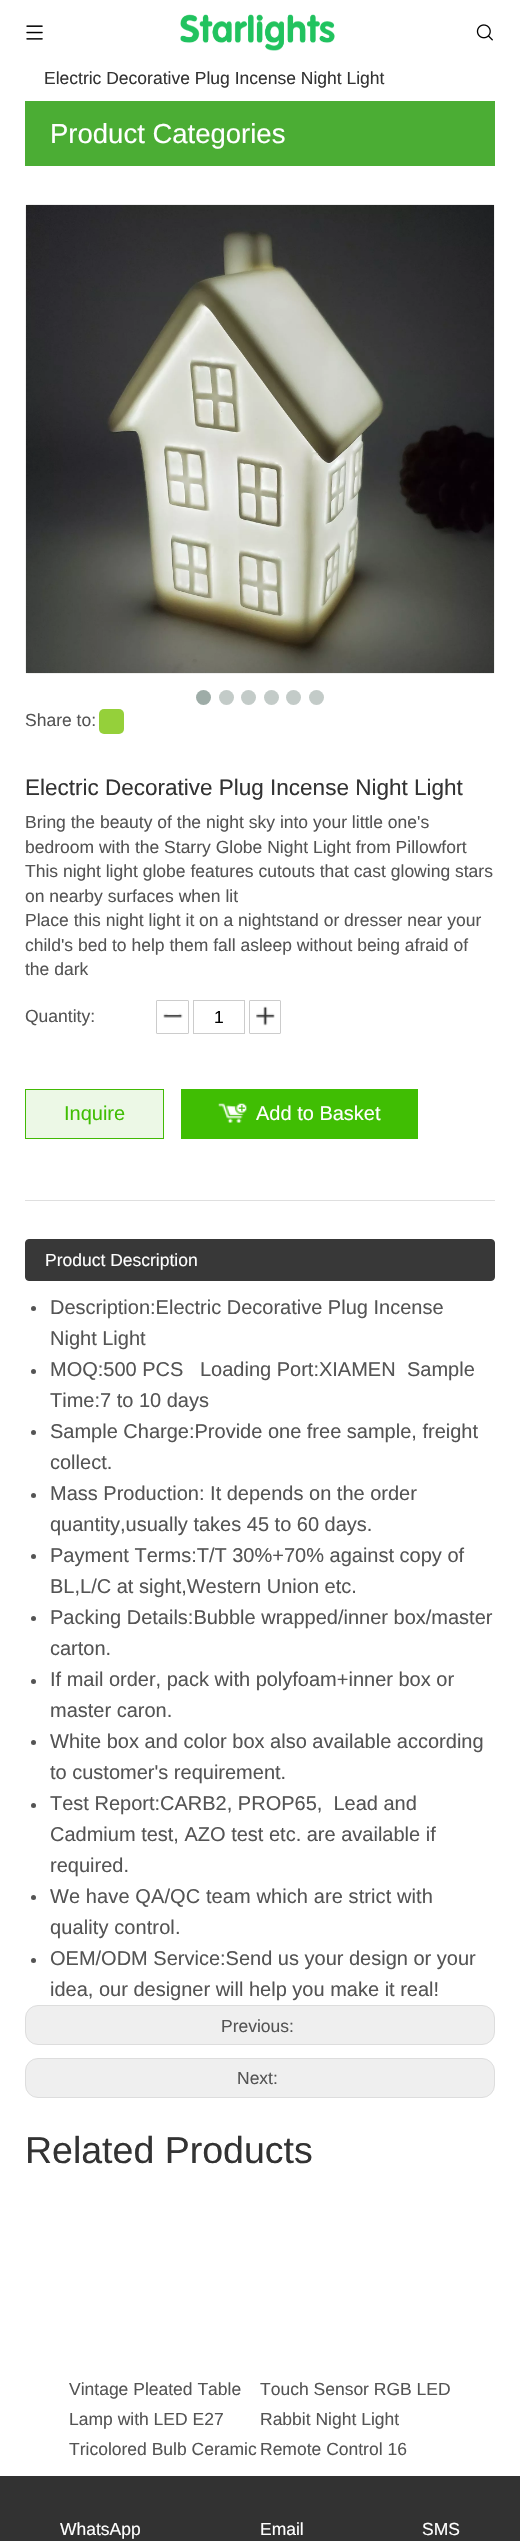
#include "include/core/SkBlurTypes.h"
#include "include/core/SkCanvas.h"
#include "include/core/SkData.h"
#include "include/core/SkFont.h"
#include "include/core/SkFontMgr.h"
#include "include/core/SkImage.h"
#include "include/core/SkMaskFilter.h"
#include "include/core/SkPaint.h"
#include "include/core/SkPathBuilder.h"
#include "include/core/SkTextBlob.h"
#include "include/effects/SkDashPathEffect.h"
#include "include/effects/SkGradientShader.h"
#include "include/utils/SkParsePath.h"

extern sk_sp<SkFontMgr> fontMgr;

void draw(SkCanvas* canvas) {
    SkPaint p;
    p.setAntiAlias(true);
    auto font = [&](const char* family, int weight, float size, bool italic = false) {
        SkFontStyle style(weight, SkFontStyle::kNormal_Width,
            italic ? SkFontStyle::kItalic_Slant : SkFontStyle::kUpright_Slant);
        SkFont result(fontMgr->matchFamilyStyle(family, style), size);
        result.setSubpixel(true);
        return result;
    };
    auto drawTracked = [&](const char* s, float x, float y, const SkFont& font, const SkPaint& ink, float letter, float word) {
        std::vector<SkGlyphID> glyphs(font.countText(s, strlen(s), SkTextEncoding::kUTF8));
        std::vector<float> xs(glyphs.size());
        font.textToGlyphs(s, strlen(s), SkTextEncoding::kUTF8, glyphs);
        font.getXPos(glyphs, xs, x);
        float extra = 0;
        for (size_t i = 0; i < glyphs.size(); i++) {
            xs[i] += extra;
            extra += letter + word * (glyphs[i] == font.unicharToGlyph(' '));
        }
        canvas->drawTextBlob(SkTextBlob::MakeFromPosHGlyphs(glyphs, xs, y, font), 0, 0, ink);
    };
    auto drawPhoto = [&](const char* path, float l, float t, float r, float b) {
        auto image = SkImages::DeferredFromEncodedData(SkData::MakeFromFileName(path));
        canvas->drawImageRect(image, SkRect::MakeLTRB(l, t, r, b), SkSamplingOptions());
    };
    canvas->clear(0xFFFFFFFF);
    drawPhoto("media/1.png", 26, 25, 43, 40);
    drawPhoto("media/2.png", 180, 14, 335, 51);
    drawPhoto("media/3.png", 476, 24, 493, 41);
    auto font1 = font("Liberation Sans", 400, 17.5f);
    p.setColor(0xFF333333);
    canvas->drawString("Electric Decorative Plug Incense Night Light", 44, 84, font1, p);
    p.setColor(0xFF4BAD34);
    canvas->drawRect(SkRect::MakeLTRB(25, 101, 495, 166), p);
    auto font2 = font("Liberation Sans", 400, 27.5f);
    p.setColor(0xFFFFFFFF);
    canvas->drawString("Product Categories", 50, 143, font2, p);
    p.setStyle(SkPaint::kStroke_Style);
    p.setStrokeWidth(1);
    p.setColor(0xFFEFEFEF);
    canvas->drawRoundRect(SkRect::MakeLTRB(25.5f, 204.5f, 494.5f, 673.5f), 2, 2, p);
    drawPhoto("media/4.png", 26, 205, 494, 673);
    p.setStyle(SkPaint::kFill_Style);
    p.setColor(0xFF9EACA7);
    canvas->drawCircle(203.5f, 697.5f, 7.5f, p);
    p.setColor(0xFFC3CBC8);
    canvas->drawCircle(226.5f, 697.5f, 7.5f, p);
    canvas->drawCircle(248.5f, 697.5f, 7.5f, p);
    canvas->drawCircle(271.5f, 697.5f, 7.5f, p);
    canvas->drawCircle(293.5f, 697.5f, 7.5f, p);
    canvas->drawCircle(316.5f, 697.5f, 7.5f, p);
    p.setColor(0xFF545454);
    canvas->drawString("Share to:", 25, 726, font1, p);
    p.setColor(0xFF95D03A);
    canvas->drawRoundRect(SkRect::MakeLTRB(99, 709, 124, 734), 5, 5, p);
    auto font3 = font("Liberation Sans", 400, 22.5f);
    p.setColor(0xFF333333);
    canvas->drawString("Electric Decorative Plug Incense Night Light", 25, 795, font3, p);
    p.setColor(0xFF545454);
    {
        const struct { const char* s; float x, y; } items[] = {
            {"Bring the beauty of the night sky into your little one's", 25, 828},
            {"bedroom with the Starry Globe Night Light from Pillowfort", 25, 853},
            {"This night light globe features cutouts that cast glowing stars", 25, 877},
            {"on nearby surfaces when lit", 25, 902},
            {"Place this night light it on a nightstand or dresser near your", 25, 926},
            {"child's bed to help them fall asleep without being afraid of", 25, 951},
            {"the dark", 25, 975},
            {"Quantity:", 25, 1022},
        };
        for (auto [s, x, y] : items) {
            canvas->drawString(s, x, y, font1, p);
        }
    }
    drawPhoto("media/5.png", 163, 1013, 183, 1018);
    p.setStyle(SkPaint::kStroke_Style);
    p.setColor(0xFFCCCCCC);
    canvas->drawRoundRect(SkRect::MakeLTRB(156.5f, 1000.5f, 188.5f, 1033.5f), 0.5f, 0.5f, p);
    canvas->drawRect(SkRect::MakeLTRB(193.5f, 1000.5f, 244.5f, 1033.5f), p);
    p.setStyle(SkPaint::kFill_Style);
    p.setColor(0xFF000000);
    canvas->drawString("1", 214, 1023, font1, p);
    drawPhoto("media/6.png", 256, 1006, 275, 1026);
    p.setStyle(SkPaint::kStroke_Style);
    p.setColor(0xFFCCCCCC);
    canvas->drawRoundRect(SkRect::MakeLTRB(249.5f, 1000.5f, 280.5f, 1033.5f), 0.5f, 0.5f, p);
    p.setStyle(SkPaint::kFill_Style);
    p.setColor(0xFFECF8E6);
    canvas->drawRect(SkRect::MakeLTRB(25.5f, 1089.5f, 163.5f, 1138.5f), p);
    p.setStyle(SkPaint::kStroke_Style);
    p.setColor(0xFF42BA05);
    canvas->drawRect(SkRect::MakeLTRB(25.5f, 1089.5f, 163.5f, 1138.5f), p);
    auto font4 = font("Liberation Sans", 400, 20);
    p.setStyle(SkPaint::kFill_Style);
    p.setColor(0xFF40BE03);
    canvas->drawString("Inquire", 64, 1120, font4, p);
    canvas->drawRect(SkRect::MakeLTRB(181, 1089, 418, 1139), p);
    drawPhoto("media/7.png", 218, 1103, 247, 1123);
    p.setColor(0xFFFFFFFF);
    canvas->drawString("Add to Basket", 256, 1120, font4, p);
    p.setColor(0xFFDFDFDF);
    canvas->drawRect(SkRect::MakeLTRB(25, 1200, 495, 1201), p);
    p.setColor(0xFF383838);
    canvas->drawRoundRect(SkRect::MakeLTRB(25.5f, 1239.5f, 494.5f, 1280.5f), 3.5f, 3.5f, p);
    p.setStyle(SkPaint::kStroke_Style);
    canvas->drawRoundRect(SkRect::MakeLTRB(25.5f, 1239.5f, 494.5f, 1280.5f), 3.5f, 3.5f, p);
    p.setStyle(SkPaint::kFill_Style);
    p.setColor(0xFFFFFFFF);
    canvas->drawString("Product Description", 45, 1266, font1, p);
    p.setColor(0xFF545454);
    canvas->drawCircle(33.5f, 1308.5f, 2.5f, p);
    canvas->drawString("Description:Electric Decorative Plug Incense", 50, 1314, font4, p);
    canvas->drawString("Night Light", 50, 1345, font4, p);
    canvas->drawCircle(33.5f, 1371.5f, 2.5f, p);
    {
        const struct { const char* s; float x, y; } items[] = {
            {"MOQ:500 PCS", 50, 1376},
            {"Loading Port:XIAMEN", 200, 1376},
            {"Sample", 407, 1376},
            {"Time:7 to 10 days", 50, 1407},
        };
        for (auto [s, x, y] : items) {
            canvas->drawString(s, x, y, font4, p);
        }
    }
    canvas->drawCircle(33.5f, 1432.5f, 2.5f, p);
    canvas->drawString("Sample Charge:Provide one free sample, freight", 50, 1438, font4, p);
    canvas->drawString("collect.", 50, 1469, font4, p);
    canvas->drawCircle(33.5f, 1495.5f, 2.5f, p);
    canvas->drawString("Mass Production: It depends on the order", 50, 1500, font4, p);
    canvas->drawString("quantity,usually takes 45 to 60 days.", 50, 1531, font4, p);
    canvas->drawCircle(33.5f, 1556.5f, 2.5f, p);
    canvas->drawString("Payment Terms:T/T 30%+70% against copy of", 50, 1562, font4, p);
    canvas->drawString("BL,L/C at sight,Western Union etc.", 50, 1593, font4, p);
    canvas->drawCircle(33.5f, 1618.5f, 2.5f, p);
    canvas->drawString("Packing Details:Bubble wrapped/inner box/master", 50, 1624, font4, p);
    canvas->drawString("carton.", 50, 1655, font4, p);
    canvas->drawCircle(33.5f, 1681.5f, 2.5f, p);
    canvas->drawString("If mail order, pack with polyfoam+inner box or", 50, 1686, font4, p);
    canvas->drawString("master caron.", 50, 1717, font4, p);
    canvas->drawCircle(33.5f, 1742.5f, 2.5f, p);
    canvas->drawString("White box and color box also available according", 50, 1748, font4, p);
    canvas->drawString("to customer's requirement.", 50, 1779, font4, p);
    canvas->drawCircle(33.5f, 1805.5f, 2.5f, p);
    {
        const struct { const char* s; float x, y; } items[] = {
            {"Test Report:CARB2, PROP65,  Lead and", 50, 1810},
            {"Cadmium test, AZO test etc. are available if", 50, 1841},
            {"required.", 50, 1872},
        };
        for (auto [s, x, y] : items) {
            canvas->drawString(s, x, y, font4, p);
        }
    }
    canvas->drawCircle(33.5f, 1897.5f, 2.5f, p);
    drawTracked("We have QA/QC team which are strict with", 50, 1903, font4, p, 0.1f, 0);
    drawTracked("quality control.", 50, 1934, font4, p, 0.1f, 0);
    canvas->drawCircle(33.5f, 1960.5f, 2.5f, p);
    canvas->drawString("OEM/ODM Service:Send us your design or your", 50, 1965, font4, p);
    canvas->drawString("idea, our designer will help you make it real!", 50, 1996, font4, p);
    p.setColor(0xFFEFEFEF);
    canvas->drawRoundRect(SkRect::MakeLTRB(25.5f, 2005.5f, 494.5f, 2044.5f), 12.5f, 12.5f, p);
    p.setStyle(SkPaint::kStroke_Style);
    p.setColor(0xFFDDDDDD);
    canvas->drawRoundRect(SkRect::MakeLTRB(25.5f, 2005.5f, 494.5f, 2044.5f), 12.5f, 12.5f, p);
    p.setStyle(SkPaint::kFill_Style);
    p.setColor(0xFF545454);
    canvas->drawString("Previous:", 221, 2032, font1, p);
    p.setColor(0xFFEFEFEF);
    canvas->drawRoundRect(SkRect::MakeLTRB(25.5f, 2058.5f, 494.5f, 2097.5f), 12.5f, 12.5f, p);
    p.setStyle(SkPaint::kStroke_Style);
    p.setColor(0xFFDDDDDD);
    canvas->drawRoundRect(SkRect::MakeLTRB(25.5f, 2058.5f, 494.5f, 2097.5f), 12.5f, 12.5f, p);
    p.setStyle(SkPaint::kFill_Style);
    p.setColor(0xFF545454);
    canvas->drawString("Next:", 237, 2084, font1, p);
    auto font5 = font("Liberation Sans", 400, 37.5f);
    p.setColor(0xFF333333);
    canvas->drawString("Related Products", 25, 2163, font5, p);
    p.setColor(0xFF545454);
    {
        const struct { const char* s; float x, y; } items[] = {
            {"Vintage Pleated Table", 69, 2395},
            {"Lamp with LED E27", 69, 2425},
            {"Tricolored Bulb Ceramic", 69, 2455},
            {"Touch Sensor RGB LED", 260, 2395},
            {"Rabbit Night Light", 260, 2425},
            {"Remote Control 16", 260, 2455},
        };
        for (auto [s, x, y] : items) {
            canvas->drawString(s, x, y, font1, p);
        }
    }
    p.setColor(0xFF323232);
    canvas->drawRect(SkRect::MakeLTRB(0, 2476, 520, 2541), p);
    p.setColor(0xFFFFFFFF);
    {
        const struct { const char* s; float x, y; } items[] = {
            {"WhatsApp", 60, 2535},
            {"Email", 260, 2535},
            {"SMS", 422, 2535},
        };
        for (auto [s, x, y] : items) {
            canvas->drawString(s, x, y, font1, p);
        }
    }
}
